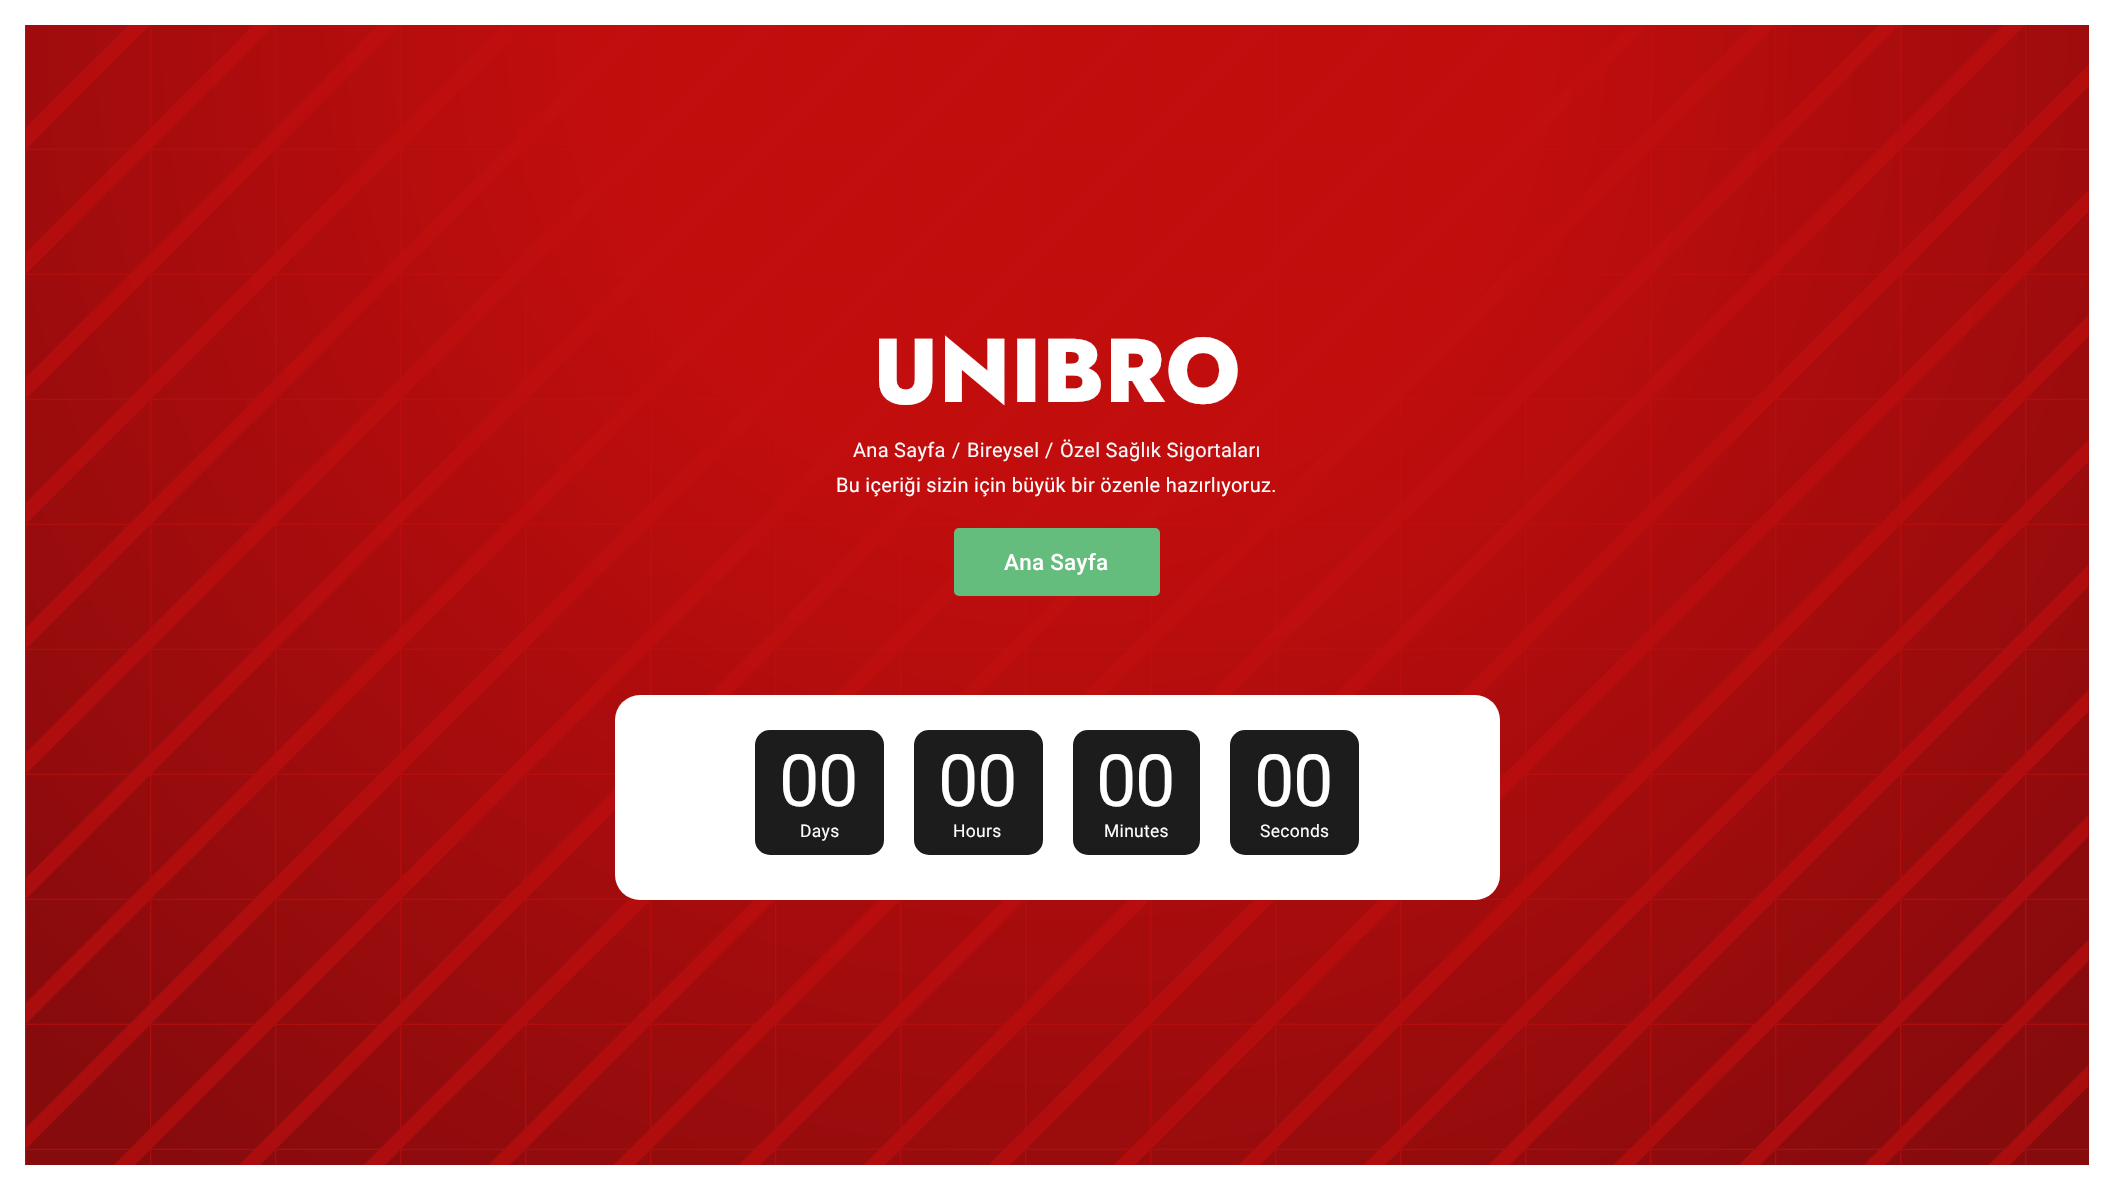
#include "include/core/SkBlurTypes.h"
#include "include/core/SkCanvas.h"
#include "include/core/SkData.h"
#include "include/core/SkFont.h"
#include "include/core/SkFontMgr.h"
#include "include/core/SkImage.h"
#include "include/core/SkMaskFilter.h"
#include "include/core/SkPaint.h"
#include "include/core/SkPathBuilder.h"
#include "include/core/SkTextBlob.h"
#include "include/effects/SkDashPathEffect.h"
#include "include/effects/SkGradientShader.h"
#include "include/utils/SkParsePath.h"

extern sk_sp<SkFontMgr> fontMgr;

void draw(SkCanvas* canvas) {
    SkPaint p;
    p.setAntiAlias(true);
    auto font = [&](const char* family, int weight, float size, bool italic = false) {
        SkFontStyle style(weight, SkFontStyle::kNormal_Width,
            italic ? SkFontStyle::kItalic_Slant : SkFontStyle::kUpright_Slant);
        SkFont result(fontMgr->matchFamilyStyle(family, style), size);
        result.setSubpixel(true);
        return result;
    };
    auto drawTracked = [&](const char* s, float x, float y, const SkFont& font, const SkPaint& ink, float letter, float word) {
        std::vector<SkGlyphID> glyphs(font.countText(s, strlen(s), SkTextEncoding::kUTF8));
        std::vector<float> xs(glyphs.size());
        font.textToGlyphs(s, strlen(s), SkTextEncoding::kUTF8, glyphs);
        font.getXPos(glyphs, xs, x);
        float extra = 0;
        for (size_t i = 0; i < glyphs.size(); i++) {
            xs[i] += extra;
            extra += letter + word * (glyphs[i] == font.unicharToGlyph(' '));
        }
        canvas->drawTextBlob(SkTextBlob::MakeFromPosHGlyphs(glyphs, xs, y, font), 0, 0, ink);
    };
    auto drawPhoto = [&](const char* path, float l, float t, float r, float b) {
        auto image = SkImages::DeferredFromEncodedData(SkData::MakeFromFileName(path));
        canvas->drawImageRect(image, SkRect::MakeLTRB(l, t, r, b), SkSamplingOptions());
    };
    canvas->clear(0xFFFFFFFF);
    {
        const SkColor colors[] = {0xFFC20D0D, 0xFF850B0D};
        const float stops[] = {0.3f, 0.95f};
        p.setShader(SkGradientShader::MakeRadial({1057, 25}, 1538, colors, stops, 2, SkTileMode::kClamp));
        p.setAlpha(255);
    }
    canvas->drawRect(SkRect::MakeLTRB(25, 25, 2089, 1165), p);
    drawPhoto("media/1.png", 25, 25, 2089, 1165);
    auto font1 = font("Jost", 800, 90.5f);
    p.setShader(nullptr);
    p.setColor(0xFFFFFFFF);
    canvas->drawString("UNIBRO", 873, 402, font1, p);
    auto font2 = font("Roboto", 400, 20);
    p.setColor(0xFFF9F9FB);
    {
        const struct { const char* s; float x, y; } items[] = {
            {"Ana Sayfa", 853, 457},
            {"/", 952, 457},
            {"Bireysel", 967, 457},
            {"/", 1045, 457},
            {"Özel Sağlık Sigortaları", 1060, 457},
        };
        for (auto [s, x, y] : items) {
            drawTracked(s, x, y, font2, p, 0.3f, 0);
        }
    }
    p.setColor(0xFFFFFFFF);
    drawTracked("Bu içeriği sizin için büyük bir özenle hazırlıyoruz.", 836, 492, font2, p, 0.3f, 0);
    p.setColor(0xFF65BD7D);
    canvas->drawRoundRect(SkRect::MakeLTRB(954, 528, 1160, 596), 5, 5, p);
    auto font3 = font("Roboto", 500, 22.5f);
    p.setColor(0xFFFFFFFF);
    drawTracked("Ana Sayfa", 1004, 570, font3, p, 0.25f, 0);
    canvas->drawRoundRect(SkRect::MakeLTRB(615, 695, 1500, 900), 25, 25, p);
    p.setColor(0xFF1C1C1C);
    canvas->drawRoundRect(SkRect::MakeLTRB(755, 730, 884, 855), 15, 15, p);
    auto font4 = font("Roboto", 400, 72);
    p.setColor(0xFFFFFFFF);
    drawTracked("0", 779, 806, font4, p, 0.3f, 0);
    drawTracked("0", 818, 806, font4, p, 0.3f, 0);
    auto font5 = font("Roboto", 400, 17.5f);
    drawTracked("Days", 800, 837, font5, p, 0.3f, 0);
    p.setColor(0xFF1C1C1C);
    canvas->drawRoundRect(SkRect::MakeLTRB(914, 730, 1043, 855), 15, 15, p);
    p.setColor(0xFFFFFFFF);
    drawTracked("0", 938, 806, font4, p, 0.3f, 0);
    drawTracked("0", 977, 806, font4, p, 0.3f, 0);
    drawTracked("Hours", 953, 837, font5, p, 0.3f, 0);
    p.setColor(0xFF1C1C1C);
    canvas->drawRoundRect(SkRect::MakeLTRB(1073, 730, 1200, 855), 15, 15, p);
    p.setColor(0xFFFFFFFF);
    drawTracked("0", 1096, 806, font4, p, 0.3f, 0);
    drawTracked("0", 1135, 806, font4, p, 0.3f, 0);
    drawTracked("Minutes", 1104, 837, font5, p, 0.3f, 0);
    p.setColor(0xFF1C1C1C);
    canvas->drawRoundRect(SkRect::MakeLTRB(1230, 730, 1359, 855), 15, 15, p);
    p.setColor(0xFFFFFFFF);
    drawTracked("0", 1254, 806, font4, p, 0.3f, 0);
    drawTracked("0", 1293, 806, font4, p, 0.3f, 0);
    drawTracked("Seconds", 1260, 837, font5, p, 0.3f, 0);
}
